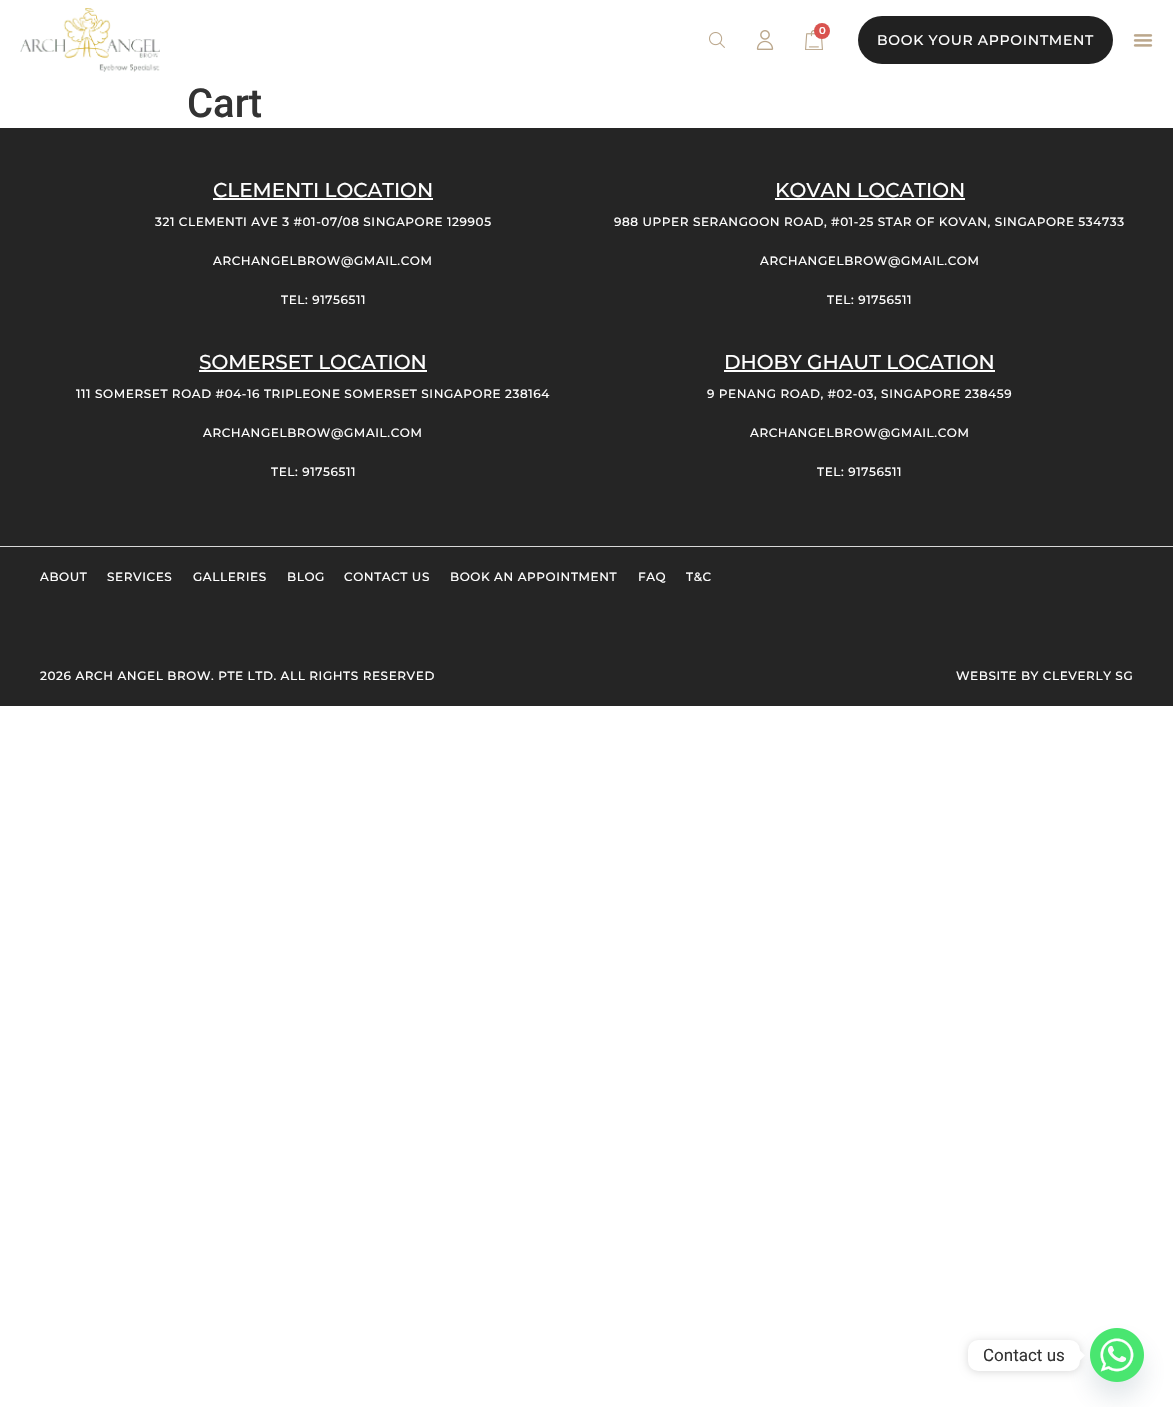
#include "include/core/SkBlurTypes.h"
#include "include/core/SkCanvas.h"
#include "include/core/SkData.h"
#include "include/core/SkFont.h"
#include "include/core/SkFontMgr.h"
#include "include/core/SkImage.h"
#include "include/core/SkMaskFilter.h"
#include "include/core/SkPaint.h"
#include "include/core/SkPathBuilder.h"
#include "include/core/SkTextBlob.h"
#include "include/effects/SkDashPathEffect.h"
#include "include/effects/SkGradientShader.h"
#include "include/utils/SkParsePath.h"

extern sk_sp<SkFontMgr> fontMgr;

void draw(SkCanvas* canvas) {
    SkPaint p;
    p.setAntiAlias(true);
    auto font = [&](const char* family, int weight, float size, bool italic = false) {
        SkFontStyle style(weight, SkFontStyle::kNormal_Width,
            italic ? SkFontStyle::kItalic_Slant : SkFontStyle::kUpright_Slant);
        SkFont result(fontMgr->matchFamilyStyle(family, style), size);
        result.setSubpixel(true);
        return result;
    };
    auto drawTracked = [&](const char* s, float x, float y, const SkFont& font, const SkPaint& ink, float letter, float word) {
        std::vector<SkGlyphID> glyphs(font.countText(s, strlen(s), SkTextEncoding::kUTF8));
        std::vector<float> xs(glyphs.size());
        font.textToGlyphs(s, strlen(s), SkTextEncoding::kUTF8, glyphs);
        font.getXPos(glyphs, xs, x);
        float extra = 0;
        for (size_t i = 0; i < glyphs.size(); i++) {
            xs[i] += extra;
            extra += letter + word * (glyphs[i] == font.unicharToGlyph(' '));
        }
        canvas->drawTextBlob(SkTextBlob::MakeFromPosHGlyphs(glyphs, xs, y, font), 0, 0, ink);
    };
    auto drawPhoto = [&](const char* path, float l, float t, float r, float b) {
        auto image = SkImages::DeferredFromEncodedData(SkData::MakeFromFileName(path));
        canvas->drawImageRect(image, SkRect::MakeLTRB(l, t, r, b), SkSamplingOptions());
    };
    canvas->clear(0xFFFFFFFF);
    drawPhoto("media/1.png", 20, 8, 160, 72);
    drawPhoto("media/2.png", 709, 32, 725, 48);
    drawPhoto("media/3.png", 756, 30, 774, 50);
    drawPhoto("media/4.png", 805, 30, 823, 50);
    p.setColor(0xFFD9534F);
    canvas->drawCircle(822, 31, 8, p);
    auto font1 = font("Montserrat", 600, 10);
    p.setColor(0xFFFFFFFF);
    canvas->drawString("0", 819, 34, font1, p);
    p.setColor(0xFF212121);
    canvas->drawRoundRect(SkRect::MakeLTRB(858, 16, 1113, 64), 24, 24, p);
    auto font2 = font("Montserrat", 500, 14);
    p.setColor(0xFFFFFFFF);
    drawTracked("BOOK YOUR APPOINTMENT", 877, 45, font2, p, 0.7f, 0);
    drawPhoto("media/5.png", 1133, 34, 1153, 47);
    auto font3 = font("Roboto", 500, 40);
    p.setColor(0xFF333333);
    canvas->drawString("Cart", 187, 117, font3, p);
    p.setColor(0xFF252525);
    canvas->drawRect(SkRect::MakeLTRB(0, 128, 1173, 546), p);
    p.setColor(0xFFD9D9D9);
    canvas->drawRect(SkRect::MakeLTRB(0, 546, 1173, 547), p);
    auto font4 = font("Montserrat", 500, 20);
    p.setColor(0xFFFFFFFF);
    canvas->drawString("CLEMENTI LOCATION", 213, 197, font4, p);
    canvas->drawRect(SkRect::MakeLTRB(213, 198, 433, 200), p);
    auto font5 = font("Montserrat", 500, 12);
    {
        const struct { const char* s; float x, y; } items[] = {
            {"321 CLEMENTI AVE 3 #01-07/08 SINGAPORE 129905", 155, 226},
            {"ARCHANGELBROW@GMAIL.COM", 213, 265},
            {"TEL: 91756511", 281, 304},
        };
        for (auto [s, x, y] : items) {
            drawTracked(s, x, y, font5, p, 0.6f, 0);
        }
    }
    canvas->drawString("KOVAN LOCATION", 775, 197, font4, p);
    canvas->drawRect(SkRect::MakeLTRB(775, 198, 965, 200), p);
    {
        const struct { const char* s; float x, y; } items[] = {
            {"988 UPPER SERANGOON ROAD, #01-25 STAR OF KOVAN, SINGAPORE 534733", 614, 226},
            {"ARCHANGELBROW@GMAIL.COM", 760, 265},
            {"TEL: 91756511", 827, 304},
        };
        for (auto [s, x, y] : items) {
            drawTracked(s, x, y, font5, p, 0.6f, 0);
        }
    }
    canvas->drawString("SOMERSET LOCATION", 199, 369, font4, p);
    canvas->drawRect(SkRect::MakeLTRB(199, 370, 427, 372), p);
    {
        const struct { const char* s; float x, y; } items[] = {
            {"111 SOMERSET ROAD #04-16 TRIPLEONE SOMERSET SINGAPORE 238164", 76, 398},
            {"ARCHANGELBROW@GMAIL.COM", 203, 437},
            {"TEL: 91756511", 271, 476},
        };
        for (auto [s, x, y] : items) {
            drawTracked(s, x, y, font5, p, 0.6f, 0);
        }
    }
    canvas->drawString("DHOBY GHAUT LOCATION", 724, 369, font4, p);
    canvas->drawRect(SkRect::MakeLTRB(724, 370, 995, 372), p);
    {
        const struct { const char* s; float x, y; } items[] = {
            {"9 PENANG ROAD, #02-03, SINGAPORE 238459", 707, 398},
            {"ARCHANGELBROW@GMAIL.COM", 750, 437},
            {"TEL: 91756511", 817, 476},
        };
        for (auto [s, x, y] : items) {
            drawTracked(s, x, y, font5, p, 0.6f, 0);
        }
    }
    p.setColor(0xFF252525);
    canvas->drawRect(SkRect::MakeLTRB(0, 547, 1173, 706), p);
    p.setColor(0xFFFFFFFF);
    {
        const struct { const char* s; float x, y; } items[] = {
            {"ABOUT", 40, 581},
            {"SERVICES", 107, 581},
            {"GALLERIES", 193, 581},
            {"BLOG", 287, 581},
            {"CONTACT US", 344, 581},
            {"BOOK AN APPOINTMENT", 450, 581},
            {"FAQ", 638, 581},
            {"T&C", 686, 581},
            {"2026 ARCH ANGEL BROW. PTE LTD. ALL RIGHTS RESERVED", 40, 680},
            {"WEBSITE BY CLEVERLY SG", 956, 680},
        };
        for (auto [s, x, y] : items) {
            drawTracked(s, x, y, font5, p, 0.6f, 0);
        }
    }
    p.setColor(0x2949687E);
    p.setMaskFilter(SkMaskFilter::MakeBlur(kNormal_SkBlurStyle, 12));
    canvas->drawRoundRect(SkRect::MakeLTRB(1090, 1344, 1144, 1398), 27, 27, p);
    p.setMaskFilter(nullptr);
    drawPhoto("media/6.png", 1090, 1328, 1144, 1382);
    p.setColor(0x26000000);
    p.setMaskFilter(SkMaskFilter::MakeBlur(kNormal_SkBlurStyle, 4));
    canvas->drawRoundRect(SkRect::MakeLTRB(968, 1341, 1080, 1372), 10, 10, p);
    p.setMaskFilter(nullptr);
    p.setColor(0xFFFFFFFF);
    canvas->drawRoundRect(SkRect::MakeLTRB(968, 1340, 1080, 1371), 10, 10, p);
    auto font6 = font("Roboto", 400, 17);
    p.setColor(0xFF333333);
    canvas->drawString("Contact us", 983, 1361, font6, p);
    p.setColor(0xFFFFFFFF);
    canvas->drawPath(SkPathBuilder().moveTo(1080, 1360.5f).lineTo(1080, 1350.5f).lineTo(1085, 1355.5f).close().detach(), p);
}
